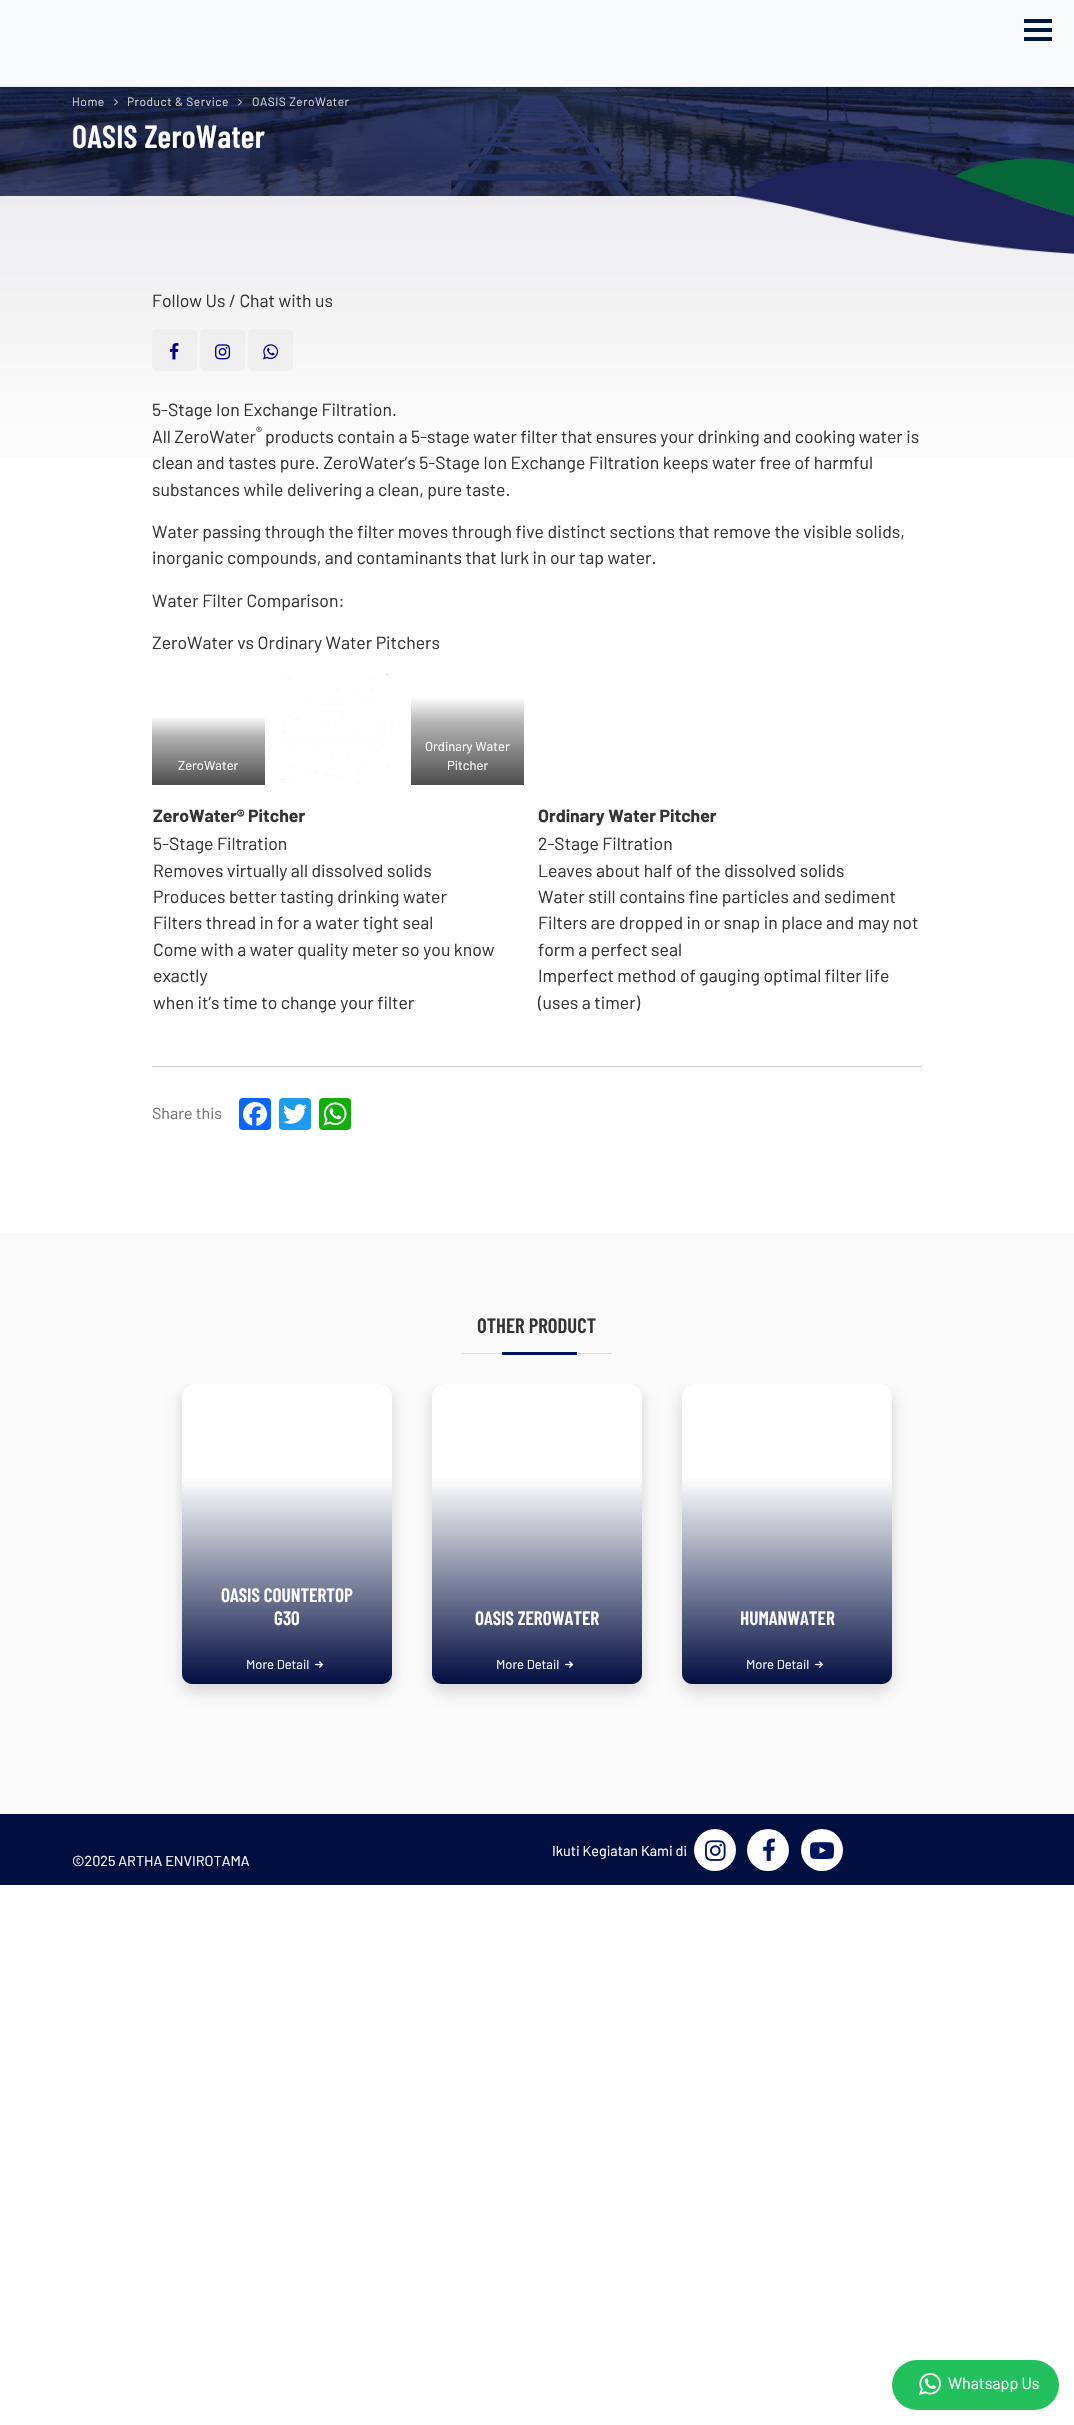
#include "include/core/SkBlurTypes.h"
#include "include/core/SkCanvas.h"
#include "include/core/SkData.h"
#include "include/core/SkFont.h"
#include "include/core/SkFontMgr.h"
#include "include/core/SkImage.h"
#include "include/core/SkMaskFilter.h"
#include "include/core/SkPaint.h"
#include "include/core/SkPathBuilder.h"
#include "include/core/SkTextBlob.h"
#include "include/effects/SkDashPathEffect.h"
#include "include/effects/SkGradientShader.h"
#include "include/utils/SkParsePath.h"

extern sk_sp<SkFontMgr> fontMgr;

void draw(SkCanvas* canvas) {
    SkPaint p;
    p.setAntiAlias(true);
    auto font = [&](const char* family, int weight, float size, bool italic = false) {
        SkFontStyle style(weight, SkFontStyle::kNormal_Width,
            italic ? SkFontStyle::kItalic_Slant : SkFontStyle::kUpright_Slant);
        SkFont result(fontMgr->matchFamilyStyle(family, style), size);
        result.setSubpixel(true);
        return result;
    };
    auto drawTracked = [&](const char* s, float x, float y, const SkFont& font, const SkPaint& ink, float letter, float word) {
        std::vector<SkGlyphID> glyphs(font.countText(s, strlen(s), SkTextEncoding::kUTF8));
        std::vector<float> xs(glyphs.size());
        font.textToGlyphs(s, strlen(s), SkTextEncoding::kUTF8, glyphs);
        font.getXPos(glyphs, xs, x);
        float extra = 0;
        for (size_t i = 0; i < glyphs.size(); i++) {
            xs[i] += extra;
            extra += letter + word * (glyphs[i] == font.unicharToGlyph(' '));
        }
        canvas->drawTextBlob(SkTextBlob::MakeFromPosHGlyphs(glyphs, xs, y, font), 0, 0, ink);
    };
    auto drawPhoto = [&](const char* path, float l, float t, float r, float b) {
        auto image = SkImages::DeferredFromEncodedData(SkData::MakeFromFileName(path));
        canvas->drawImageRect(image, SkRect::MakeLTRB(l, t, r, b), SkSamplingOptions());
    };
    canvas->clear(0xFFFFFFFF);
    drawPhoto("media/1.png", 0, 87, 1074, 196);
    p.setColor(0x54000000);
    p.setMaskFilter(SkMaskFilter::MakeBlur(kNormal_SkBlurStyle, 2.5f));
    canvas->drawRect(SkRect::MakeLTRB(-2, -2, 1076, 89), p);
    p.setMaskFilter(nullptr);
    {
        const struct { float l, t, r, b; SkColor color; } items[] = {
            {0, 0, 1074, 86, 0xFFF8F9FA},
            {0, 86, 1074, 87, 0xFFEEEEEE},
            {1024, 19, 1052, 23, 0xFF00183E},
            {1024, 28, 1052, 32, 0xFF00183E},
            {1024, 37, 1052, 41, 0xFF00183E},
        };
        for (auto [l, t, r, b, color] : items) {
            p.setColor(color);
            canvas->drawRect(SkRect::MakeLTRB(l, t, r, b), p);
        }
    }
    auto font1 = font("Barlow", 400, 12);
    p.setColor(0xFFD1D3D9);
    drawTracked("Home", 72, 106, font1, p, 0.5f, 0);
    drawPhoto("media/2.png", 114, 98, 118, 106);
    drawTracked("Product & Service", 127, 106, font1, p, 0.5f, 0);
    drawPhoto("media/3.png", 238, 98, 242, 106);
    drawTracked("OASIS ZeroWater", 252, 106, font1, p, 0.5f, 0);
    auto font2 = font("Barlow Condensed", 600, 32);
    p.setColor(0xFFFFFFFF);
    drawTracked("OASIS ZeroWater", 72, 148, font2, p, 0.25f, 0);
    {
        const SkColor colors[] = {0xFFEDEDF1, 0xFFF6F6F6, 0xFFFFFFFF};
        const float stops[] = {0, 0.53f, 1};
        const SkPoint ends[] = {{537, 196}, {537, 496}};
        p.setShader(SkGradientShader::MakeLinear(ends, colors, stops, 3, SkTileMode::kClamp));
        p.setAlpha(255);
    }
    canvas->drawRect(SkRect::MakeLTRB(0, 196, 1074, 457), p);
    drawPhoto("media/4.png", 735, 158, 1074, 254);
    auto font3 = font("Barlow", 400, 17.6f);
    p.setShader(nullptr);
    p.setColor(0xFF333333);
    canvas->drawString("Follow Us / Chat with us", 152, 307, font3, p);
    p.setColor(0xFFEFEFEF);
    canvas->drawRoundRect(SkRect::MakeLTRB(152, 329, 197, 371), 5, 5, p);
    drawPhoto("media/5.png", 169, 343, 179, 360);
    canvas->drawRoundRect(SkRect::MakeLTRB(200, 329, 245, 371), 5, 5, p);
    drawPhoto("media/6.png", 215, 344, 231, 360);
    canvas->drawRoundRect(SkRect::MakeLTRB(248, 329, 293, 371), 5, 5, p);
    drawPhoto("media/7.png", 263, 344, 279, 360);
    p.setColor(0xFF333333);
    canvas->drawString("5-Stage Ion Exchange Filtration.", 152, 416, font3, p);
    auto font4 = font("Barlow", 400, 13);
    canvas->drawString("®", 256, 436, font4, p);
    {
        const struct { const char* s; float x, y; } items[] = {
            {"All ZeroWater", 152, 443},
            {"products contain a 5-stage water filter that ensures your drinking and cooking water is", 265, 443},
            {"clean and tastes pure. ZeroWater’s 5-Stage Ion Exchange Filtration keeps water free of harmful", 152, 469},
            {"substances while delivering a clean, pure taste.", 152, 496},
            {"Water passing through the filter moves through five distinct sections that remove the visible solids,", 152, 538},
            {"inorganic compounds, and contaminants that lurk in our tap water.", 152, 564},
            {"Water Filter Comparison:", 152, 607},
            {"ZeroWater vs Ordinary Water Pitchers", 152, 649},
        };
        for (auto [s, x, y] : items) {
            canvas->drawString(s, x, y, font3, p);
        }
    }
    {
        const SkColor colors[] = {0xFF4D4D4D, 0xFFB3B3B3, 0xFFFFFFFF};
        const float stops[] = {0, 0.7f, 1};
        const SkPoint ends[] = {{209, 785}, {209, 716}};
        p.setShader(SkGradientShader::MakeLinear(ends, colors, stops, 3, SkTileMode::kClamp));
        p.setAlpha(255);
    }
    canvas->drawRect(SkRect::MakeLTRB(152, 717, 265, 785), p);
    p.setShader(nullptr);
    p.setColor(0xFFFFFFFF);
    canvas->drawString("ZeroWater", 178, 770, font4, p);
    drawPhoto("media/8.png", 281, 672, 394, 784);
    {
        const SkColor colors[] = {0xFF4D4D4D, 0xFFB3B3B3, 0xFFFFFFFF};
        const float stops[] = {0, 0.7f, 1};
        const SkPoint ends[] = {{468, 785}, {468, 697}};
        p.setShader(SkGradientShader::MakeLinear(ends, colors, stops, 3, SkTileMode::kClamp));
        p.setAlpha(255);
    }
    canvas->drawRect(SkRect::MakeLTRB(411, 698, 524, 785), p);
    p.setShader(nullptr);
    p.setColor(0xFFFFFFFF);
    canvas->drawString("Ordinary Water", 425, 751, font4, p);
    canvas->drawString("Pitcher", 447, 770, font4, p);
    auto font5 = font("Barlow", 700, 17.6f);
    p.setColor(0xFF333333);
    canvas->drawString("ZeroWater® Pitcher", 153, 822, font5, p);
    canvas->drawString("Ordinary Water Pitcher", 538, 822, font5, p);
    {
        const struct { const char* s; float x, y; } items[] = {
            {"5-Stage Filtration", 153, 850},
            {"Removes virtually all dissolved solids", 153, 877},
            {"Produces better tasting drinking water", 153, 903},
            {"Filters thread in for a water tight seal", 153, 929},
            {"Come with a water quality meter so you know", 153, 956},
            {"exactly", 153, 982},
            {"when it’s time to change your filter", 153, 1009},
            {"2-Stage Filtration", 538, 850},
            {"Leaves about half of the dissolved solids", 538, 877},
            {"Water still contains fine particles and sediment", 538, 903},
            {"Filters are dropped in or snap in place and may not", 538, 929},
            {"form a perfect seal", 538, 956},
            {"Imperfect method of gauging optimal filter life", 538, 982},
            {"(uses a timer)", 538, 1009},
        };
        for (auto [s, x, y] : items) {
            canvas->drawString(s, x, y, font3, p);
        }
    }
    p.setColor(0xFFCCCCCC);
    canvas->drawRect(SkRect::MakeLTRB(152, 1066, 922, 1067), p);
    auto font6 = font("Barlow", 400, 16);
    p.setColor(0xFF707070);
    canvas->drawString("Share this", 152, 1119, font6, p);
    p.setColor(0xFF0866FF);
    canvas->drawRoundRect(SkRect::MakeLTRB(239, 1098, 271, 1130), 4, 4, p);
    drawPhoto("media/9.png", 243, 1102, 267, 1126);
    p.setColor(0xFF1D9BF0);
    canvas->drawRoundRect(SkRect::MakeLTRB(279, 1098, 311, 1130), 4, 4, p);
    drawPhoto("media/10.png", 283, 1104, 307, 1124);
    p.setColor(0xFF12AF0A);
    canvas->drawRoundRect(SkRect::MakeLTRB(319, 1098, 351, 1130), 4, 4, p);
    drawPhoto("media/11.png", 323, 1102, 347, 1126);
    p.setColor(0xFFFAFAFA);
    canvas->drawRect(SkRect::MakeLTRB(0, 1233, 1074, 1814), p);
    auto font7 = font("Barlow Condensed", 600, 20.75f);
    p.setColor(0xFF333333);
    canvas->drawString("OTHER PRODUCT", 477, 1333, font7, p);
    p.setColor(0xFFDEDEDE);
    canvas->drawRect(SkRect::MakeLTRB(462, 1353, 612, 1354), p);
    p.setColor(0xFF00145F);
    canvas->drawRect(SkRect::MakeLTRB(502, 1352, 577, 1355), p);
    canvas->save();
    canvas->clipRect(SkRect::MakeLTRB(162, 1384, 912, 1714));
    p.setColor(0x26000000);
    p.setMaskFilter(SkMaskFilter::MakeBlur(kNormal_SkBlurStyle, 7.5f));
    canvas->drawRoundRect(SkRect::MakeLTRB(182, 1391, 392, 1691), 13, 13, p);
    p.setMaskFilter(nullptr);
    canvas->restore();
    p.setColor(0xFFFFFFFF);
    canvas->drawRoundRect(SkRect::MakeLTRB(182, 1384, 392, 1684), 13, 13, p);
    {
        const SkColor colors[] = {0x00000D40, 0xFF000D40};
        const float stops[] = {0.31f, 1};
        const SkPoint ends[] = {{287, 1384}, {287, 1684}};
        p.setShader(SkGradientShader::MakeLinear(ends, colors, stops, 2, SkTileMode::kClamp));
        p.setAlpha(255);
    }
    canvas->drawPath(SkPathBuilder().moveTo(182, 1384).lineTo(392, 1384).lineTo(392, 1674).cubicTo(392, 1679.5f, 387.5f, 1684, 382, 1684).lineTo(192, 1684).cubicTo(186.5f, 1684, 182, 1679.5f, 182, 1674).close().detach(), p);
    auto font8 = font("Barlow Condensed", 600, 19.25f);
    p.setShader(nullptr);
    p.setColor(0xFFFFFFFF);
    canvas->drawString("OASIS COUNTERTOP", 221, 1602, font8, p);
    canvas->drawString("G30", 274, 1625, font8, p);
    canvas->drawString("More Detail", 246, 1669, font4, p);
    drawPhoto("media/12.png", 315, 1661, 324, 1668);
    canvas->save();
    canvas->clipRect(SkRect::MakeLTRB(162, 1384, 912, 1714));
    p.setColor(0x26000000);
    p.setMaskFilter(SkMaskFilter::MakeBlur(kNormal_SkBlurStyle, 7.5f));
    canvas->drawRoundRect(SkRect::MakeLTRB(432, 1391, 642, 1691), 13, 13, p);
    p.setMaskFilter(nullptr);
    canvas->restore();
    p.setColor(0xFFFFFFFF);
    canvas->drawRoundRect(SkRect::MakeLTRB(432, 1384, 642, 1684), 13, 13, p);
    {
        const SkColor colors[] = {0x00000D40, 0xFF000D40};
        const float stops[] = {0.31f, 1};
        const SkPoint ends[] = {{537, 1384}, {537, 1684}};
        p.setShader(SkGradientShader::MakeLinear(ends, colors, stops, 2, SkTileMode::kClamp));
        p.setAlpha(255);
    }
    canvas->drawPath(SkPathBuilder().moveTo(432, 1384).lineTo(642, 1384).lineTo(642, 1674).cubicTo(642, 1679.5f, 637.5f, 1684, 632, 1684).lineTo(442, 1684).cubicTo(436.5f, 1684, 432, 1679.5f, 432, 1674).close().detach(), p);
    p.setShader(nullptr);
    p.setColor(0xFFFFFFFF);
    canvas->drawString("OASIS ZEROWATER", 475, 1625, font8, p);
    canvas->drawString("More Detail", 496, 1669, font4, p);
    drawPhoto("media/12.png", 565, 1661, 574, 1668);
    canvas->save();
    canvas->clipRect(SkRect::MakeLTRB(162, 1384, 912, 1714));
    p.setColor(0x26000000);
    p.setMaskFilter(SkMaskFilter::MakeBlur(kNormal_SkBlurStyle, 7.5f));
    canvas->drawRoundRect(SkRect::MakeLTRB(682, 1391, 892, 1691), 13, 13, p);
    p.setMaskFilter(nullptr);
    canvas->restore();
    p.setColor(0xFFFFFFFF);
    canvas->drawRoundRect(SkRect::MakeLTRB(682, 1384, 892, 1684), 13, 13, p);
    {
        const SkColor colors[] = {0x00000D40, 0xFF000D40};
        const float stops[] = {0.31f, 1};
        const SkPoint ends[] = {{787, 1384}, {787, 1684}};
        p.setShader(SkGradientShader::MakeLinear(ends, colors, stops, 2, SkTileMode::kClamp));
        p.setAlpha(255);
    }
    canvas->drawPath(SkPathBuilder().moveTo(682, 1384).lineTo(892, 1384).lineTo(892, 1674).cubicTo(892, 1679.5f, 887.5f, 1684, 882, 1684).lineTo(692, 1684).cubicTo(686.5f, 1684, 682, 1679.5f, 682, 1674).close().detach(), p);
    p.setShader(nullptr);
    p.setColor(0xFFFFFFFF);
    canvas->drawString("HUMANWATER", 740, 1625, font8, p);
    canvas->drawString("More Detail", 746, 1669, font4, p);
    drawPhoto("media/12.png", 815, 1661, 824, 1668);
    p.setColor(0xFF010E40);
    canvas->drawRect(SkRect::MakeLTRB(0, 1814, 1074, 1885), p);
    auto font9 = font("Barlow", 400, 14.4f);
    p.setColor(0xFFFFFFFF);
    canvas->drawString("Ikuti Kegiatan Kami di", 552, 1856, font9, p);
    canvas->drawCircle(715, 1850, 21, p);
    drawPhoto("media/13.png", 705, 1840, 726, 1861);
    canvas->drawCircle(768, 1850, 21, p);
    drawPhoto("media/14.png", 763, 1838, 775, 1861);
    canvas->drawCircle(822, 1850, 21, p);
    drawPhoto("media/15.png", 810, 1842, 834, 1860);
    canvas->drawString("©2025 ARTHA ENVIROTAMA", 72, 1866, font9, p);
    p.setColor(0xFF22C15E);
    canvas->drawRoundRect(SkRect::MakeLTRB(892, 2360, 1059, 2410), 25, 25, p);
    drawPhoto("media/16.png", 919, 2373, 941, 2395);
    p.setColor(0xFFFFFFFF);
    canvas->drawString("Whatsapp Us", 948, 2389, font6, p);
}
